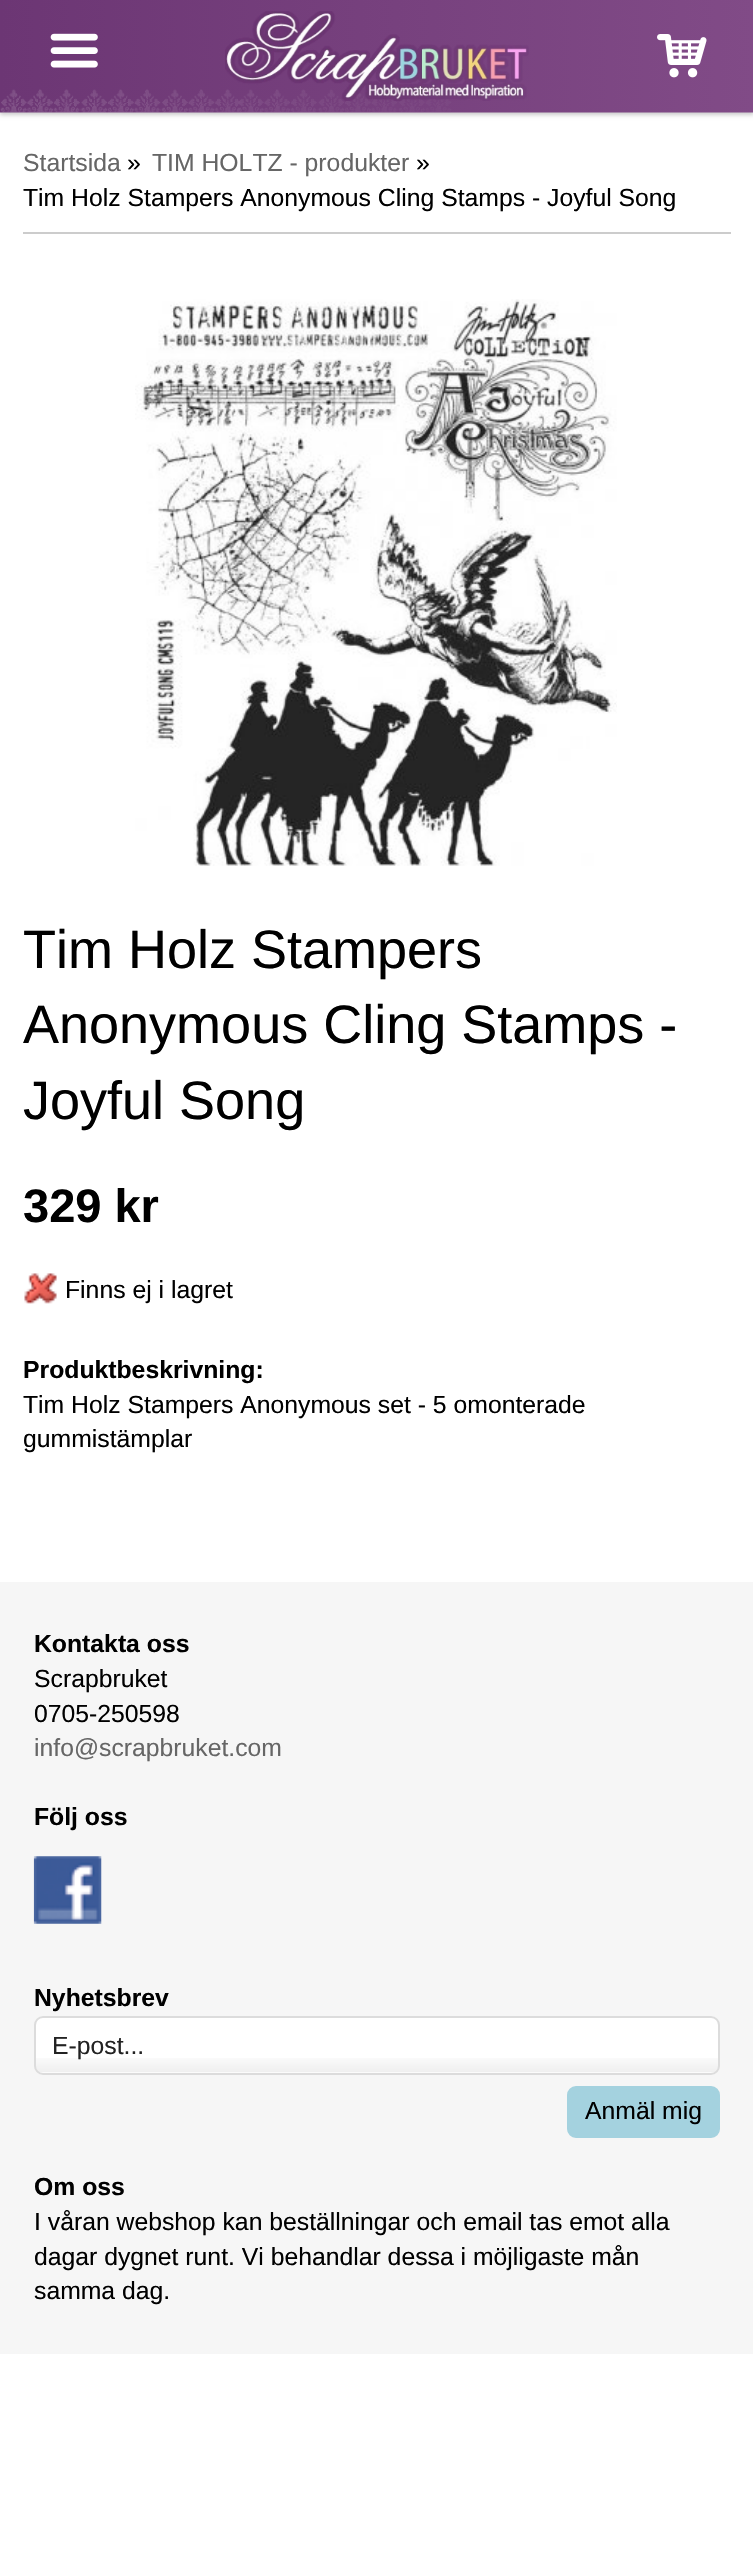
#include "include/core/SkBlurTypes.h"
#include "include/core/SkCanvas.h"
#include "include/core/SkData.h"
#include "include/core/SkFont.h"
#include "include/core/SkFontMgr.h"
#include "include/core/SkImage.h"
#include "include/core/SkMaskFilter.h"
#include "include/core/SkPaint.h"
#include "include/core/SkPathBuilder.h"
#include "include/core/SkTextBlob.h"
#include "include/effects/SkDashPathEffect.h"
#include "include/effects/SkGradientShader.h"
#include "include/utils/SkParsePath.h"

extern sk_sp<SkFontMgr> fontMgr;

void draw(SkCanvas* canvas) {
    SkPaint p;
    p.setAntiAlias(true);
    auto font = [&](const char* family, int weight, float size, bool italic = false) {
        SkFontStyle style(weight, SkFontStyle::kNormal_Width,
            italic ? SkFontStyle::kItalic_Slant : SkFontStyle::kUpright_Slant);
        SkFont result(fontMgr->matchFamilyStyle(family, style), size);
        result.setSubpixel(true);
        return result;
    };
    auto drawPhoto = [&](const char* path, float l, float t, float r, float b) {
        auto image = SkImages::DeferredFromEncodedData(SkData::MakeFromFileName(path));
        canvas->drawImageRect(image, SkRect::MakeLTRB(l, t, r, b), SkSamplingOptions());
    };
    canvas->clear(0xFFFFFFFF);
    p.setColor(0x33000000);
    p.setMaskFilter(SkMaskFilter::MakeBlur(kNormal_SkBlurStyle, 2));
    canvas->drawRect(SkRect::MakeLTRB(0, 2, 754, 115), p);
    p.setMaskFilter(nullptr);
    drawPhoto("media/1.png", 0, 0, 753, 113);
    drawPhoto("media/2.png", 50, 33, 98, 68);
    drawPhoto("media/3.png", 225, 11, 529, 101);
    drawPhoto("media/4.png", 657, 34, 707, 78);
    p.setColor(0xFFCCCCCC);
    canvas->drawRect(SkRect::MakeLTRB(23, 232, 731, 234), p);
    auto font1 = font("Liberation Sans", 400, 24.75f);
    p.setColor(0xFF666666);
    canvas->drawString("Startsida", 23, 171, font1, p);
    p.setColor(0xFF000000);
    canvas->drawString("»", 127, 171, font1, p);
    p.setColor(0xFF666666);
    canvas->drawString("TIM HOLTZ - produkter", 152, 171, font1, p);
    p.setColor(0xFF000000);
    canvas->drawString("»", 416, 171, font1, p);
    canvas->drawString("Tim Holz Stampers Anonymous Cling Stamps - Joyful Song", 23, 206, font1, p);
    drawPhoto("media/5.png", 135, 299, 617, 866);
    auto font2 = font("Liberation Sans", 400, 54);
    {
        const struct { const char* s; float x, y; } items[] = {
            {"Tim Holz Stampers", 23, 968},
            {"Anonymous Cling Stamps -", 23, 1043},
            {"Joyful Song", 23, 1119},
        };
        for (auto [s, x, y] : items) {
            canvas->drawString(s, x, y, font2, p);
        }
    }
    auto font3 = font("Liberation Sans", 700, 47);
    canvas->drawString("329 kr", 23, 1222, font3, p);
    drawPhoto("media/6.png", 24, 1273, 57, 1304);
    canvas->drawString("Finns ej i lagret", 65, 1298, font1, p);
    auto font4 = font("Liberation Sans", 700, 24.75f);
    canvas->drawString("Produktbeskrivning:", 23, 1378, font4, p);
    canvas->drawString("Tim Holz Stampers Anonymous set - 5 omonterade", 23, 1413, font1, p);
    canvas->drawString("gummistämplar", 23, 1447, font1, p);
    p.setColor(0xFFF6F6F6);
    canvas->drawRect(SkRect::MakeLTRB(0, 1582, 753, 2354), p);
    p.setColor(0xFF000000);
    canvas->drawString("Kontakta oss", 34, 1652, font4, p);
    canvas->drawString("Scrapbruket", 34, 1687, font1, p);
    canvas->drawString("0705-250598", 34, 1722, font1, p);
    p.setColor(0xFF666666);
    canvas->drawString("info@scrapbruket.com", 34, 1756, font1, p);
    p.setColor(0xFF000000);
    canvas->drawString("Följ oss", 34, 1825, font4, p);
    drawPhoto("media/7.png", 33, 1856, 102, 1924);
    canvas->drawString("Nyhetsbrev", 34, 2006, font4, p);
    p.setColor(0xFFFFFFFF);
    canvas->drawRoundRect(SkRect::MakeLTRB(34, 2016, 720, 2075), 9, 9, p);
    drawPhoto("media/8.png", 34, 2058, 720, 2073);
    p.setStyle(SkPaint::kStroke_Style);
    p.setStrokeWidth(2);
    p.setColor(0xFFDCDCDC);
    canvas->drawRoundRect(SkRect::MakeLTRB(35, 2017, 719, 2074), 8, 8, p);
    p.setStyle(SkPaint::kFill_Style);
    p.setColor(0xFF222222);
    canvas->drawString("E-post...", 52, 2054, font1, p);
    p.setColor(0xFFA4D2DF);
    canvas->drawRoundRect(SkRect::MakeLTRB(568, 2087, 719, 2137), 8, 8, p);
    p.setStyle(SkPaint::kStroke_Style);
    canvas->drawRoundRect(SkRect::MakeLTRB(568, 2087, 719, 2137), 8, 8, p);
    p.setStyle(SkPaint::kFill_Style);
    p.setColor(0xFF000000);
    canvas->drawString("Anmäl mig", 585, 2119, font1, p);
    canvas->drawString("Om oss", 34, 2195, font4, p);
    {
        const struct { const char* s; float x, y; } items[] = {
            {"I våran webshop kan beställningar och email tas emot alla", 34, 2230},
            {"dagar dygnet runt. Vi behandlar dessa i möjligaste mån", 34, 2265},
            {"samma dag.", 34, 2299},
        };
        for (auto [s, x, y] : items) {
            canvas->drawString(s, x, y, font1, p);
        }
    }
}
